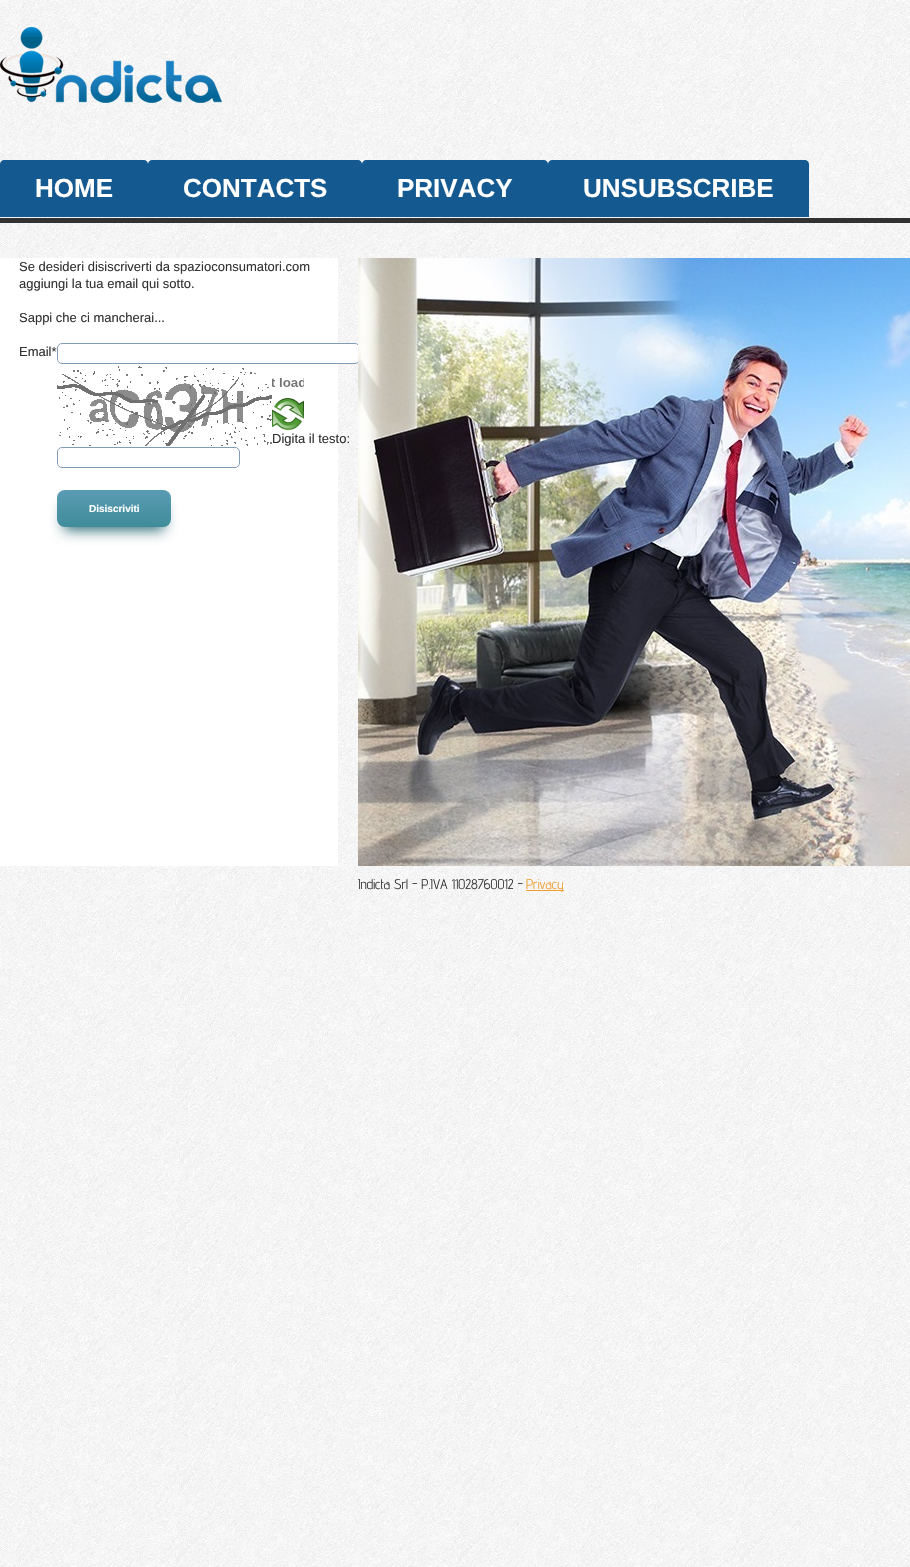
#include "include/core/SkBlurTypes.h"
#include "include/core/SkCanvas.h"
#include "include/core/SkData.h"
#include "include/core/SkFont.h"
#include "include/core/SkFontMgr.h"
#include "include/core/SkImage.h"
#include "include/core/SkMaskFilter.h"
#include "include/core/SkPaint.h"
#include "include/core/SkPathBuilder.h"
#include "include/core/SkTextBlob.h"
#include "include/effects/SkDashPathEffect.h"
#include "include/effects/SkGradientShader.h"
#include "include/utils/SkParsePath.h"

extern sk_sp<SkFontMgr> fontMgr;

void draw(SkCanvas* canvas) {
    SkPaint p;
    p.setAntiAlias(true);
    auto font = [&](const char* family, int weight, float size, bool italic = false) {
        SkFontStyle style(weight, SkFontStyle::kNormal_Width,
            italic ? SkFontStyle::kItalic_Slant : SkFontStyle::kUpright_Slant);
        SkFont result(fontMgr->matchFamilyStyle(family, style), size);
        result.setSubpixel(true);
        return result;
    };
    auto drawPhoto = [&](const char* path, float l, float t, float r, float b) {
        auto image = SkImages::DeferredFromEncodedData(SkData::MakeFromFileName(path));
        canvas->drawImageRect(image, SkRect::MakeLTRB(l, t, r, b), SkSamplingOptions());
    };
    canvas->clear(0xFFFFFFFF);
    drawPhoto("media/1.png", 0, 0, 910, 1567);
    drawPhoto("media/2.png", 0, 27, 222, 103);
    p.setColor(0xFF323232);
    canvas->drawRect(SkRect::MakeLTRB(0, 218, 910, 223), p);
    p.setColor(0xFF145A90);
    canvas->drawPath(SkPathBuilder().moveTo(4, 160).lineTo(144, 160).cubicTo(146, 160, 148, 162, 148, 164).lineTo(148, 217).lineTo(0, 217).lineTo(0, 164).cubicTo(0, 162, 2, 160, 4, 160).close().detach(), p);
    auto font1 = font("Liberation Sans", 700, 26);
    p.setColor(0xFFFFFFFF);
    canvas->drawString("HOME", 35, 197, font1, p);
    p.setColor(0xFF145A90);
    canvas->drawPath(SkPathBuilder().moveTo(152, 160).lineTo(358, 160).cubicTo(360, 160, 362, 162, 362, 164).lineTo(362, 217).lineTo(148, 217).lineTo(148, 164).cubicTo(148, 162, 150, 160, 152, 160).close().detach(), p);
    p.setColor(0xFFFFFFFF);
    canvas->drawString("CONTACTS", 183, 197, font1, p);
    p.setColor(0xFF145A90);
    canvas->drawPath(SkPathBuilder().moveTo(366, 160).lineTo(544, 160).cubicTo(546, 160, 548, 162, 548, 164).lineTo(548, 217).lineTo(362, 217).lineTo(362, 164).cubicTo(362, 162, 364, 160, 366, 160).close().detach(), p);
    p.setColor(0xFFFFFFFF);
    canvas->drawString("PRIVACY", 397, 197, font1, p);
    p.setColor(0xFF145A90);
    canvas->drawPath(SkPathBuilder().moveTo(552, 160).lineTo(805, 160).cubicTo(807, 160, 809, 162, 809, 164).lineTo(809, 217).lineTo(548, 217).lineTo(548, 164).cubicTo(548, 162, 550, 160, 552, 160).close().detach(), p);
    p.setColor(0xFFFFFFFF);
    canvas->drawString("UNSUBSCRIBE", 583, 197, font1, p);
    canvas->drawRect(SkRect::MakeLTRB(0, 258, 338, 866), p);
    auto font2 = font("Liberation Sans", 400, 13);
    p.setColor(0xFF323232);
    {
        const struct { const char* s; float x, y; } items[] = {
            {"Se desideri disiscriverti da spazioconsumatori.com", 19, 271},
            {"aggiungi la tua email qui sotto.", 19, 288},
            {"Sappi che ci mancherai...", 19, 322},
            {"Email*", 19, 356},
        };
        for (auto [s, x, y] : items) {
            canvas->drawString(s, x, y, font2, p);
        }
    }
    p.setColor(0xFFFFFFFF);
    canvas->drawRoundRect(SkRect::MakeLTRB(57.5f, 343.5f, 359.5f, 363.5f), 4.5f, 4.5f, p);
    p.setStyle(SkPaint::kStroke_Style);
    p.setStrokeWidth(1);
    p.setColor(0xFF7F9DB9);
    canvas->drawRoundRect(SkRect::MakeLTRB(57.5f, 343.5f, 359.5f, 363.5f), 4.5f, 4.5f, p);
    drawPhoto("media/3.png", 57, 366, 272, 446);
    drawPhoto("media/4.png", 272, 378, 304, 387);
    drawPhoto("media/5.png", 272, 398, 304, 430);
    p.setStyle(SkPaint::kFill_Style);
    p.setColor(0xFF323232);
    canvas->drawString("Digita il testo:", 272, 443, font2, p);
    p.setStyle(SkPaint::kStroke_Style);
    p.setColor(0xFF7F9DB9);
    canvas->drawRoundRect(SkRect::MakeLTRB(57.5f, 447.5f, 239.5f, 467.5f), 4.5f, 4.5f, p);
    p.setStyle(SkPaint::kFill_Style);
    p.setColor(0xFF276873);
    p.setMaskFilter(SkMaskFilter::MakeBlur(kNormal_SkBlurStyle, 7));
    canvas->drawRoundRect(SkRect::MakeLTRB(64, 507, 164, 530), 1, 1, p);
    p.setMaskFilter(nullptr);
    {
        const SkColor colors[] = {0xFF599BB3, 0xFF408C99};
        const float stops[] = {0.05f, 1};
        const SkPoint ends[] = {{114, 490}, {114, 527}};
        p.setShader(SkGradientShader::MakeLinear(ends, colors, stops, 2, SkTileMode::kClamp));
        p.setAlpha(255);
    }
    canvas->drawRoundRect(SkRect::MakeLTRB(57, 490, 171, 527), 8, 8, p);
    auto font3 = font("Liberation Sans", 700, 10);
    p.setShader(nullptr);
    p.setColor(0xFFFFFFFF);
    canvas->drawString("Disiscriviti", 89, 512, font3, p);
    drawPhoto("media/6.png", 358, 258, 910, 866);
    auto font4 = font("Advent Pro", 400, 14);
    p.setColor(0xFF323232);
    canvas->drawString("Indicta Srl - P.IVA 11028760012 -", 358, 889, font4, p);
    p.setColor(0xFFF09E2F);
    canvas->drawRect(SkRect::MakeLTRB(526, 890, 564, 891), p);
    canvas->drawString("Privacy", 526, 889, font4, p);
}
